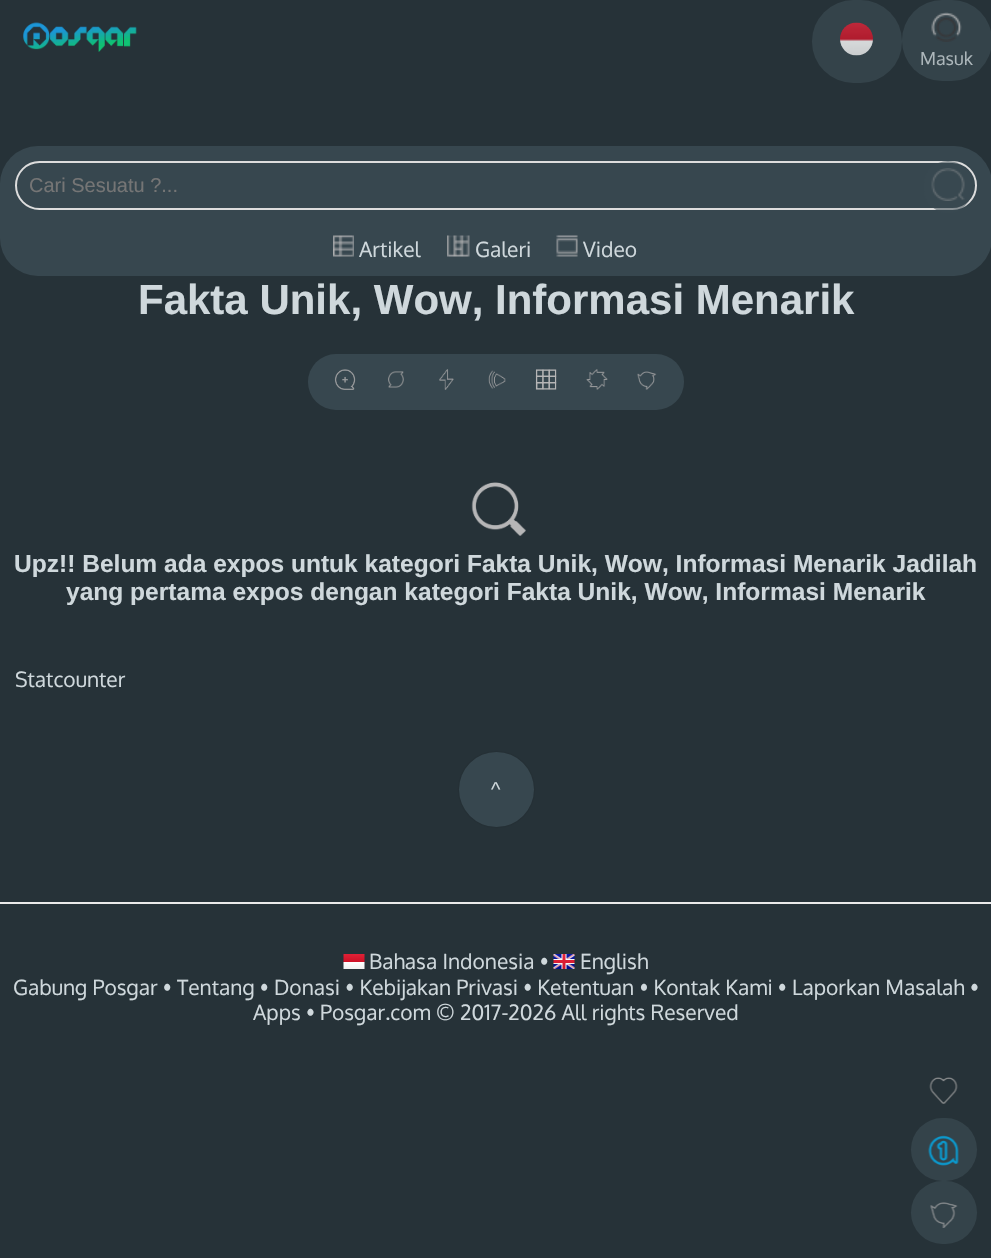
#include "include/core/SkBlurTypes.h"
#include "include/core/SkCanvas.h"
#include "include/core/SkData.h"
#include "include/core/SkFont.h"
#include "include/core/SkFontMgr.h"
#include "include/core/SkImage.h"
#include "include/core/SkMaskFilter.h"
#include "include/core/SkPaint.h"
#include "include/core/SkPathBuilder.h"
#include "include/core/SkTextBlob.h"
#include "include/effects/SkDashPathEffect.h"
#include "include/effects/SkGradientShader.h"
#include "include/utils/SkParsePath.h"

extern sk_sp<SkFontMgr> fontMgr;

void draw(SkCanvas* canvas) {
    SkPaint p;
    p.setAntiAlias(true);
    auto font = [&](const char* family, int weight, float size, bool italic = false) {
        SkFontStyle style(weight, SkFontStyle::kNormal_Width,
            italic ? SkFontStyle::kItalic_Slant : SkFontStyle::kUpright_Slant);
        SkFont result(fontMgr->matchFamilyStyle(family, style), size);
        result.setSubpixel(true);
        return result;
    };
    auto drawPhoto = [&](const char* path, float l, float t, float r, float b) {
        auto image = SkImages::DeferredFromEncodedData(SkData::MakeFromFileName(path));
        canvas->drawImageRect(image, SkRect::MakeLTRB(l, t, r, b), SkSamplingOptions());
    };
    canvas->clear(0xFF263238);
    drawPhoto("media/1.png", 23, 22, 137, 52);
    p.setColor(0xFF34434A);
    canvas->drawRoundRect(SkRect::MakeLTRB(812, 0, 902, 83), 41.5f, 41.5f, p);
    drawPhoto("media/2.png", 840, 22, 873, 56);
    canvas->drawRoundRect(SkRect::MakeLTRB(902, 0, 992, 81), 40.5f, 40.5f, p);
    drawPhoto("media/3.png", 931, 12, 962, 42);
    auto font1 = font("Oxygen", 400, 18);
    p.setColor(0xFFADB7BB);
    canvas->drawString("Masuk", 920, 65, font1, p);
    p.setColor(0xFF37474F);
    canvas->drawRoundRect(SkRect::MakeLTRB(0, 146, 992, 276), 38, 38, p);
    p.setStyle(SkPaint::kStroke_Style);
    p.setStrokeWidth(2);
    p.setColor(0xFFDDDDDD);
    canvas->drawRoundRect(SkRect::MakeLTRB(16, 162, 976, 209), 23.5f, 23.5f, p);
    auto font2 = font("Liberation Sans", 400, 20);
    p.setStyle(SkPaint::kFill_Style);
    p.setColor(0xFF757575);
    canvas->drawString("Cari Sesuatu ?...", 29, 192, font2, p);
    p.setColor(0x8037474F);
    canvas->drawRoundRect(SkRect::MakeLTRB(924, 161, 972, 213), 24, 24, p);
    drawPhoto("media/4.png", 931, 168, 965, 201);
    drawPhoto("media/5.png", 333, 235, 354, 257);
    auto font3 = font("Oxygen", 400, 21);
    p.setColor(0xFFCFD8DC);
    canvas->drawString("Artikel", 359, 257, font3, p);
    drawPhoto("media/6.png", 447, 235, 470, 257);
    canvas->drawString("Galeri", 475, 257, font3, p);
    drawPhoto("media/7.png", 556, 235, 578, 257);
    canvas->drawString("Video", 583, 257, font3, p);
    auto font4 = font("Liberation Sans", 700, 42);
    canvas->drawString("Fakta Unik, Wow, Informasi Menarik", 138, 314, font4, p);
    p.setColor(0xFF37474F);
    canvas->drawRoundRect(SkRect::MakeLTRB(308, 354, 684, 410), 28, 28, p);
    drawPhoto("media/8.png", 334, 369, 356, 390);
    drawPhoto("media/9.png", 388, 371, 404, 388);
    drawPhoto("media/10.png", 439, 369, 454, 390);
    drawPhoto("media/11.png", 488, 370, 506, 389);
    drawPhoto("media/12.png", 535, 369, 557, 390);
    drawPhoto("media/13.png", 586, 369, 608, 390);
    drawPhoto("media/14.png", 637, 371, 657, 390);
    drawPhoto("media/15.png", 471, 482, 526, 536);
    auto font5 = font("Liberation Sans", 700, 24.55f);
    p.setColor(0xFFCFD8DC);
    canvas->drawString("Upz!! Belum ada expos untuk kategori Fakta Unik, Wow, Informasi Menarik Jadilah", 14, 572, font5, p);
    canvas->drawString("yang pertama expos dengan kategori Fakta Unik, Wow, Informasi Menarik", 66, 600, font5, p);
    canvas->drawString("Statcounter", 15, 687, font3, p);
    p.setColor(0x33000000);
    p.setMaskFilter(SkMaskFilter::MakeBlur(kNormal_SkBlurStyle, 1));
    canvas->drawRoundRect(SkRect::MakeLTRB(459, 752, 534, 827), 37.5f, 37.5f, p);
    p.setMaskFilter(nullptr);
    p.setColor(0xFF37474F);
    canvas->drawCircle(496.5f, 789.5f, 37.5f, p);
    p.setColor(0xFFCFD8DC);
    canvas->drawString("^", 491, 796, font2, p);
    p.setColor(0xFFEAEAEA);
    canvas->drawRect(SkRect::MakeLTRB(0, 902, 991, 904), p);
    drawPhoto("media/16.png", 343, 954, 365, 969);
    p.setColor(0xFFCFD8DC);
    canvas->drawString("Bahasa Indonesia •", 369, 969, font3, p);
    drawPhoto("media/17.png", 553, 954, 575, 969);
    {
        const struct { const char* s; float x, y; } items[] = {
            {"English", 580, 969},
            {"Gabung Posgar • Tentang • Donasi • Kebijakan Privasi • Ketentuan • Kontak Kami • Laporkan Masalah •", 13, 995},
            {"Apps • Posgar.com © 2017-2026 All rights Reserved", 253, 1020},
        };
        for (auto [s, x, y] : items) {
            canvas->drawString(s, x, y, font3, p);
        }
    }
    drawPhoto("media/18.png", 929, 1077, 958, 1104);
    p.setColor(0xFF34434A);
    canvas->drawRoundRect(SkRect::MakeLTRB(911, 1118, 977, 1181), 31.5f, 31.5f, p);
    drawPhoto("media/19.png", 928, 1135, 959, 1166);
    canvas->drawRoundRect(SkRect::MakeLTRB(911, 1181, 977, 1244), 31.5f, 31.5f, p);
    drawPhoto("media/20.png", 930, 1202, 958, 1228);
}
